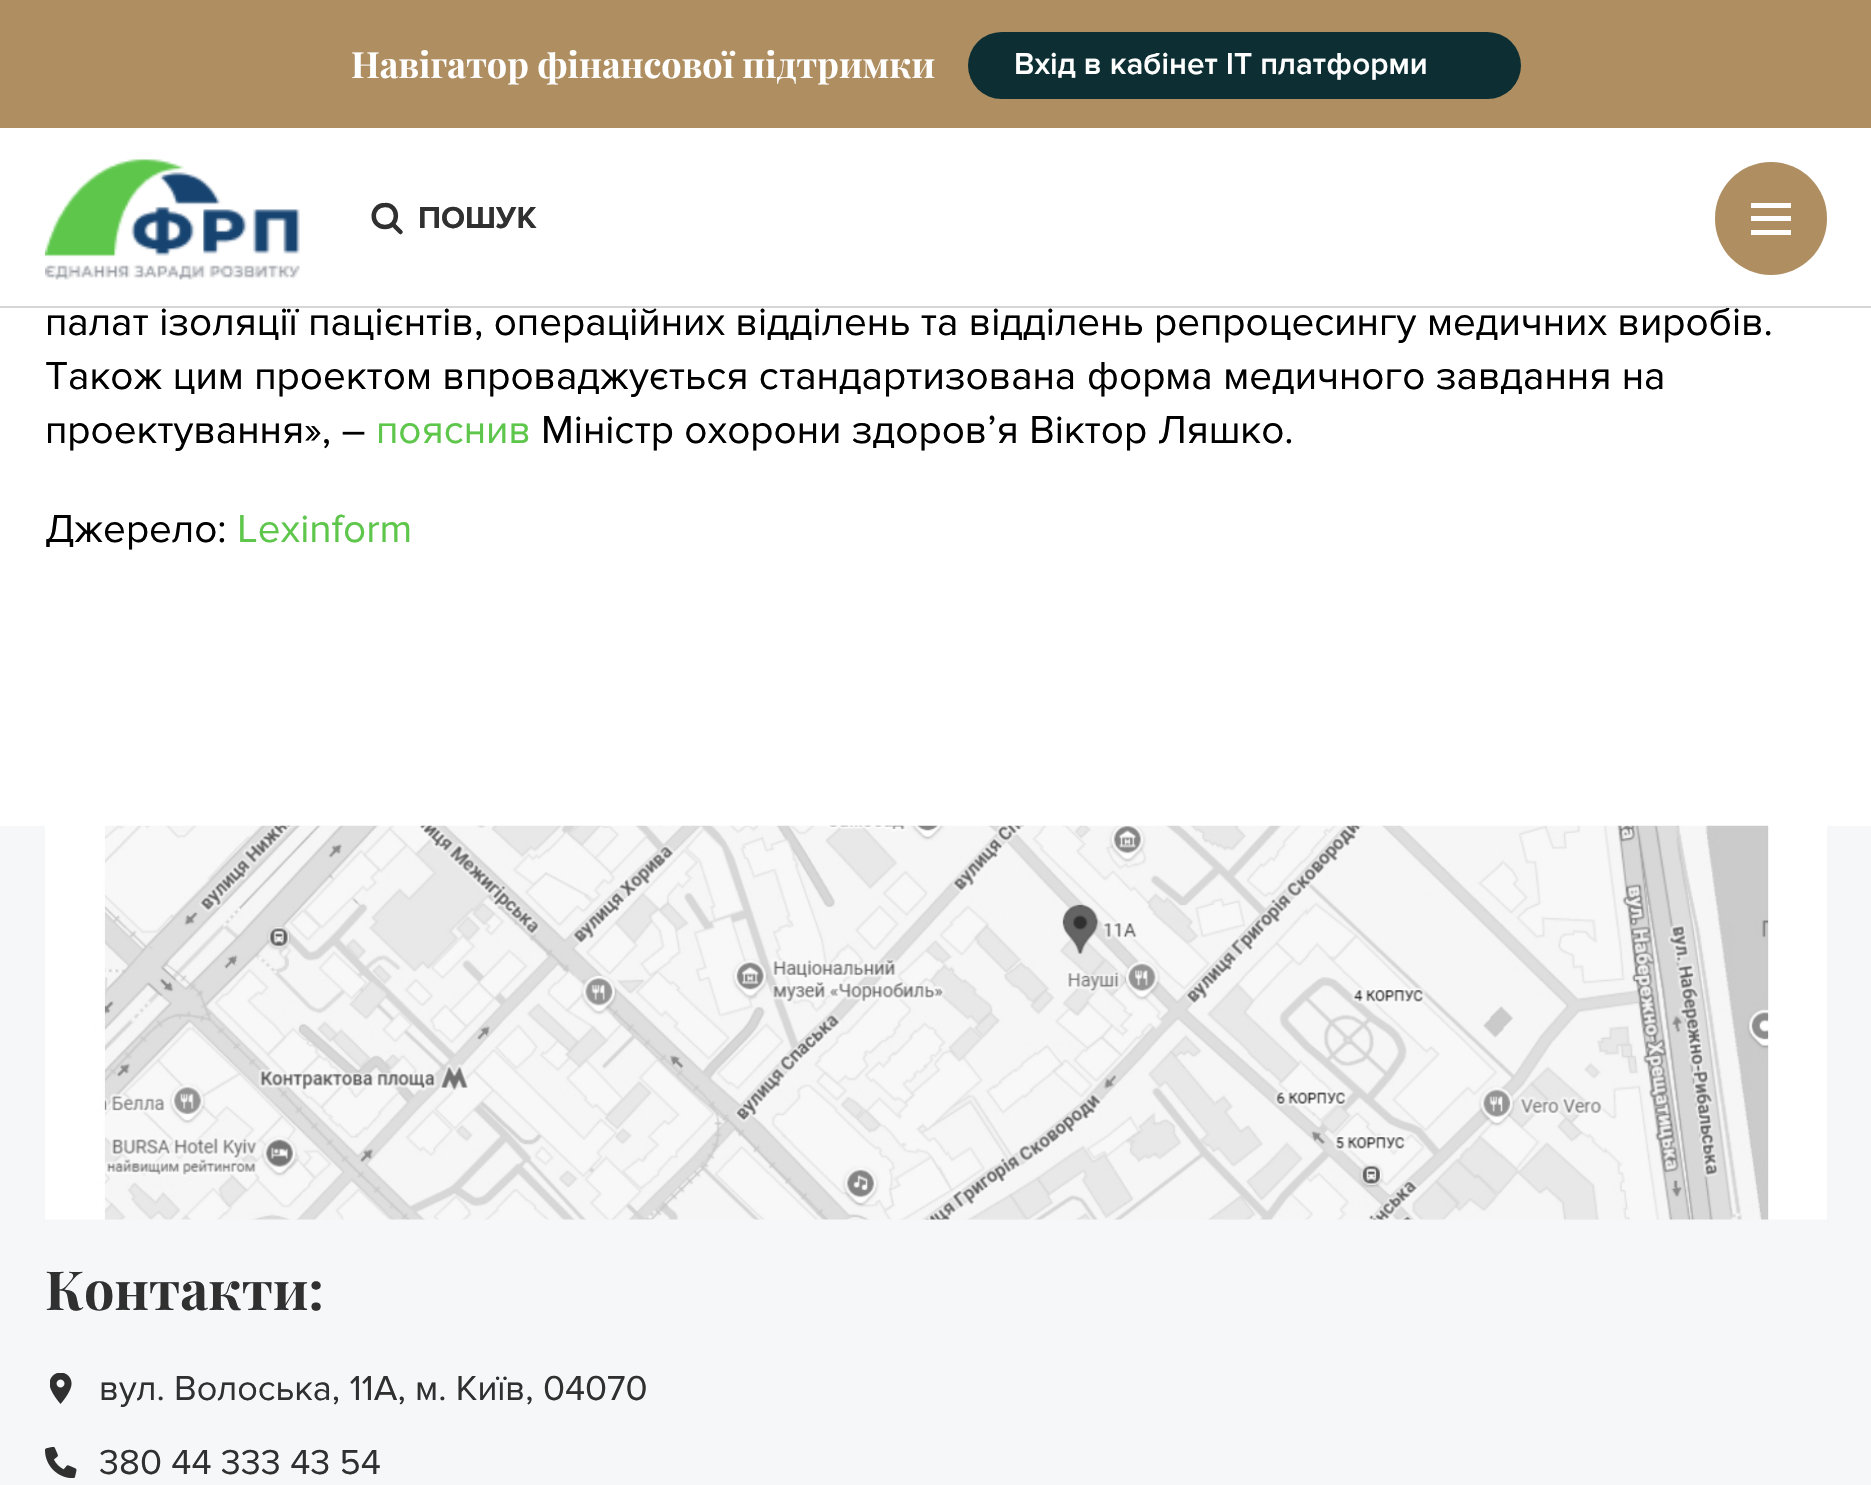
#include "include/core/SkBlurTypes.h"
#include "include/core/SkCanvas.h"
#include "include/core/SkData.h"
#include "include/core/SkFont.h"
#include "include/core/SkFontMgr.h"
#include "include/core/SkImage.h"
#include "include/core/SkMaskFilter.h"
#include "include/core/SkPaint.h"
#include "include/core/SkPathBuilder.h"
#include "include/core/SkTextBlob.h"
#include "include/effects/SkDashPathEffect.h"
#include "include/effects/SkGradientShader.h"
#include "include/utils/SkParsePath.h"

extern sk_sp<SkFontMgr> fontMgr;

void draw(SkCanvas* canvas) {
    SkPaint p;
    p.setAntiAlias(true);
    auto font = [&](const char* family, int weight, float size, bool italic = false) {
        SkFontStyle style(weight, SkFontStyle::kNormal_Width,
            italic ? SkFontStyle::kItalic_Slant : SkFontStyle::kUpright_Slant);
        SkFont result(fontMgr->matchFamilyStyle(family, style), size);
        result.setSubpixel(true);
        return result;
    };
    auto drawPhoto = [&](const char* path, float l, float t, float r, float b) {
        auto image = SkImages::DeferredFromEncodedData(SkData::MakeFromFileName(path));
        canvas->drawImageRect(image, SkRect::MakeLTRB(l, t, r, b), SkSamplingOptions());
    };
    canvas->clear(0xFFFFFFFF);
    p.setColor(0xFFAF8F62);
    canvas->drawRect(SkRect::MakeLTRB(0, 0, 1871, 128), p);
    auto font1 = font("Playfair Display", 700, 36);
    p.setColor(0xFFFFFFFF);
    canvas->drawString("Навігатор фінансової підтримки", 351, 78, font1, p);
    p.setColor(0xFF0D2F33);
    canvas->drawRoundRect(SkRect::MakeLTRB(968, 32, 1521, 99), 33.5f, 33.5f, p);
    auto font2 = font("Proxima Nova", 600, 31.5f);
    p.setColor(0xFFFFFFFF);
    canvas->drawString("Вхід в кабінет IT платформи", 1014, 74, font2, p);
    p.setColor(0xFFD6D6D6);
    canvas->drawRect(SkRect::MakeLTRB(0, 306, 1871, 308), p);
    drawPhoto("media/1.png", 45, 159, 300, 281);
    p.setStyle(SkPaint::kStroke_Style);
    p.setStrokeWidth(4.5f);
    p.setStrokeCap(SkPaint::kRound_Cap);
    p.setStrokeJoin(SkPaint::kRound_Join);
    p.setColor(0xFF303030);
    canvas->drawPath(SkPathBuilder().moveTo(385, 227).cubicTo(399.5f, 227, 399.5f, 204.5f, 385, 205).cubicTo(370, 205, 370, 227, 385, 227).close().moveTo(400.5f, 232).lineTo(392.5f, 224).detach(), p);
    auto font3 = font("Proxima Nova", 700, 31.5f);
    p.setStyle(SkPaint::kFill_Style);
    canvas->drawString("ПОШУК", 418, 228, font3, p);
    p.setColor(0xFFAF8F62);
    canvas->drawRoundRect(SkRect::MakeLTRB(1715, 162, 1827, 275), 56, 56, p);
    {
        const struct { float l, t, r, b; SkColor color; } items[] = {
            {1751, 203, 1791, 208, 0xFFFFFFFF},
            {1751, 216, 1791, 221, 0xFFFFFFFF},
            {1751, 230, 1791, 235, 0xFFFFFFFF},
        };
        for (auto [l, t, r, b, color] : items) {
            p.setColor(color);
            canvas->drawRect(SkRect::MakeLTRB(l, t, r, b), p);
        }
    }
    auto font4 = font("Proxima Nova", 400, 40.5f);
    p.setColor(0xFF000000);
    {
        const struct { const char* s; float x, y; } items[] = {
            {"палат ізоляції пацієнтів, операційних відділень та відділень репроцесингу медичних виробів.", 45, 335},
            {"Також цим проектом впроваджується стандартизована форма медичного завдання на", 45, 389},
            {"проектування», –", 45, 443},
        };
        for (auto [s, x, y] : items) {
            canvas->drawString(s, x, y, font4, p);
        }
    }
    p.setColor(0xFF5DC64B);
    canvas->drawString("пояснив", 376, 443, font4, p);
    p.setColor(0xFF000000);
    canvas->drawString("Міністр охорони здоров’я Віктор Ляшко.", 541, 443, font4, p);
    canvas->drawString("Джерело:", 45, 542, font4, p);
    p.setColor(0xFF5DC64B);
    canvas->drawString("Lexinform", 237, 542, font4, p);
    p.setColor(0xFFF6F7F8);
    canvas->drawRect(SkRect::MakeLTRB(0, 826, 1871, 1485), p);
    drawPhoto("media/2.png", 45, 825, 1827, 1220);
    auto font5 = font("Playfair Display", 700, 54);
    p.setColor(0xFF303030);
    canvas->drawString("Контакти:", 45, 1310, font5, p);
    drawPhoto("media/3.png", 50, 1373, 72, 1404);
    auto font6 = font("Proxima Nova", 400, 36);
    canvas->drawString("вул. Волоська, 11А, м. Київ, 04070", 99, 1400, font6, p);
    drawPhoto("media/4.png", 45, 1447, 77, 1478);
    canvas->drawString("380 44 333 43 54", 99, 1474, font6, p);
}
